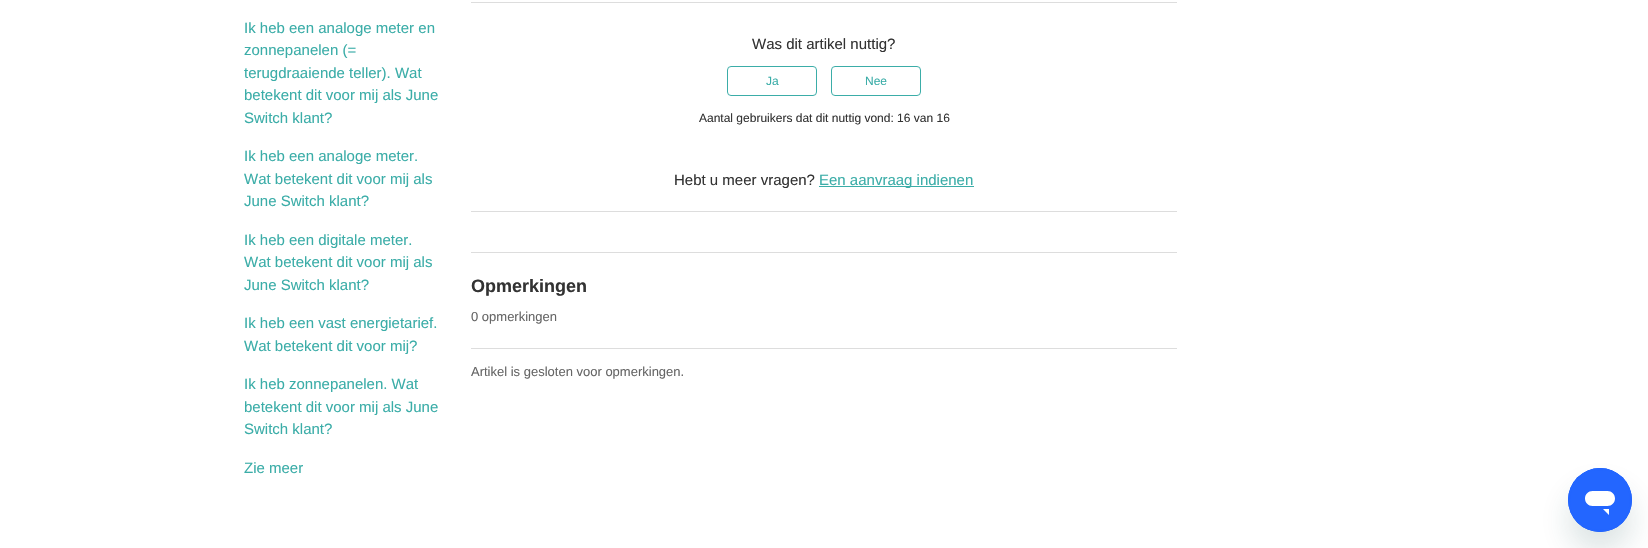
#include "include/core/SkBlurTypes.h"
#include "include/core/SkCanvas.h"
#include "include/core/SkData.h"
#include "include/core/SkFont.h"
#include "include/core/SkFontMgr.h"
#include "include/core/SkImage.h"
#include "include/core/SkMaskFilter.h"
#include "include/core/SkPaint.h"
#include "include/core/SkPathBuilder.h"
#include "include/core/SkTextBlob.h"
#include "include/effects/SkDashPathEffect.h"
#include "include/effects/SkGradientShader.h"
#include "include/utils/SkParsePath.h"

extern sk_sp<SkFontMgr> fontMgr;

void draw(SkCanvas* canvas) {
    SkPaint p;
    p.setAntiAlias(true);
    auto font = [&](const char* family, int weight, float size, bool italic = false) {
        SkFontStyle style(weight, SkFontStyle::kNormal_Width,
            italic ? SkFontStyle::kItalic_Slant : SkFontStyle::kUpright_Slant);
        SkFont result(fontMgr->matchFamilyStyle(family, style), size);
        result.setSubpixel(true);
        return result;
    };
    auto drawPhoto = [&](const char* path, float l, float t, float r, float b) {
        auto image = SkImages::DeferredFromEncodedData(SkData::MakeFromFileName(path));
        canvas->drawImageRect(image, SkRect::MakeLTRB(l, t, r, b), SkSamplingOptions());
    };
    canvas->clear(0xFFFFFFFF);
    auto font1 = font("Liberation Sans", 400, 15);
    p.setColor(0xFF3BADA8);
    {
        const struct { const char* s; float x, y; } items[] = {
            {"Ik heb een analoge meter en", 244, 33},
            {"zonnepanelen (=", 244, 55},
            {"terugdraaiende teller). Wat", 244, 78},
            {"betekent dit voor mij als June", 244, 100},
            {"Switch klant?", 244, 123},
            {"Ik heb een analoge meter.", 244, 161},
            {"Wat betekent dit voor mij als", 244, 184},
            {"June Switch klant?", 244, 206},
            {"Ik heb een digitale meter.", 244, 245},
            {"Wat betekent dit voor mij als", 244, 267},
            {"June Switch klant?", 244, 290},
            {"Ik heb een vast energietarief.", 244, 328},
            {"Wat betekent dit voor mij?", 244, 351},
            {"Ik heb zonnepanelen. Wat", 244, 389},
            {"betekent dit voor mij als June", 244, 412},
            {"Switch klant?", 244, 434},
            {"Zie meer", 244, 473},
        };
        for (auto [s, x, y] : items) {
            canvas->drawString(s, x, y, font1, p);
        }
    }
    p.setColor(0xFFDDDDDD);
    canvas->drawRect(SkRect::MakeLTRB(471, 2, 1177, 3), p);
    p.setColor(0xFF333333);
    canvas->drawString("Was dit artikel nuttig?", 752, 49, font1, p);
    p.setStyle(SkPaint::kStroke_Style);
    p.setStrokeWidth(1);
    p.setColor(0xFF3BADA8);
    canvas->drawRoundRect(SkRect::MakeLTRB(727.5f, 66.5f, 816.5f, 95.5f), 3.5f, 3.5f, p);
    auto font2 = font("Liberation Sans", 400, 12);
    p.setStyle(SkPaint::kFill_Style);
    canvas->drawString("Ja", 766, 85, font2, p);
    p.setStyle(SkPaint::kStroke_Style);
    canvas->drawRoundRect(SkRect::MakeLTRB(831.5f, 66.5f, 920.5f, 95.5f), 3.5f, 3.5f, p);
    p.setStyle(SkPaint::kFill_Style);
    canvas->drawString("Nee", 865, 85, font2, p);
    p.setColor(0xFF333333);
    canvas->drawString("Aantal gebruikers dat dit nuttig vond: 16 van 16", 699, 122, font2, p);
    canvas->drawString("Hebt u meer vragen?", 674, 185, font1, p);
    p.setColor(0xFF3BADA8);
    canvas->drawRect(SkRect::MakeLTRB(819, 186, 974, 187), p);
    canvas->drawString("Een aanvraag indienen", 819, 185, font1, p);
    {
        const struct { float l, t, r, b; SkColor color; } items[] = {
            {471, 211, 1177, 212, 0xFFDDDDDD},
            {471, 252, 1177, 253, 0xFFDDDDDD},
            {471, 348, 1177, 349, 0xFFDDDDDD},
        };
        for (auto [l, t, r, b, color] : items) {
            p.setColor(color);
            canvas->drawRect(SkRect::MakeLTRB(l, t, r, b), p);
        }
    }
    auto font3 = font("Liberation Sans", 700, 18);
    p.setColor(0xFF333333);
    canvas->drawString("Opmerkingen", 471, 292, font3, p);
    auto font4 = font("Liberation Sans", 400, 13);
    p.setColor(0xFF666666);
    canvas->drawString("0 opmerkingen", 471, 321, font4, p);
    canvas->drawString("Artikel is gesloten voor opmerkingen.", 471, 376, font4, p);
    p.setColor(0x2617494D);
    p.setMaskFilter(SkMaskFilter::MakeBlur(kNormal_SkBlurStyle, 15));
    canvas->drawRoundRect(SkRect::MakeLTRB(1568, 488, 1632, 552), 32, 32, p);
    p.setMaskFilter(nullptr);
    drawPhoto("media/1.png", 1568, 468, 1632, 532);
}
